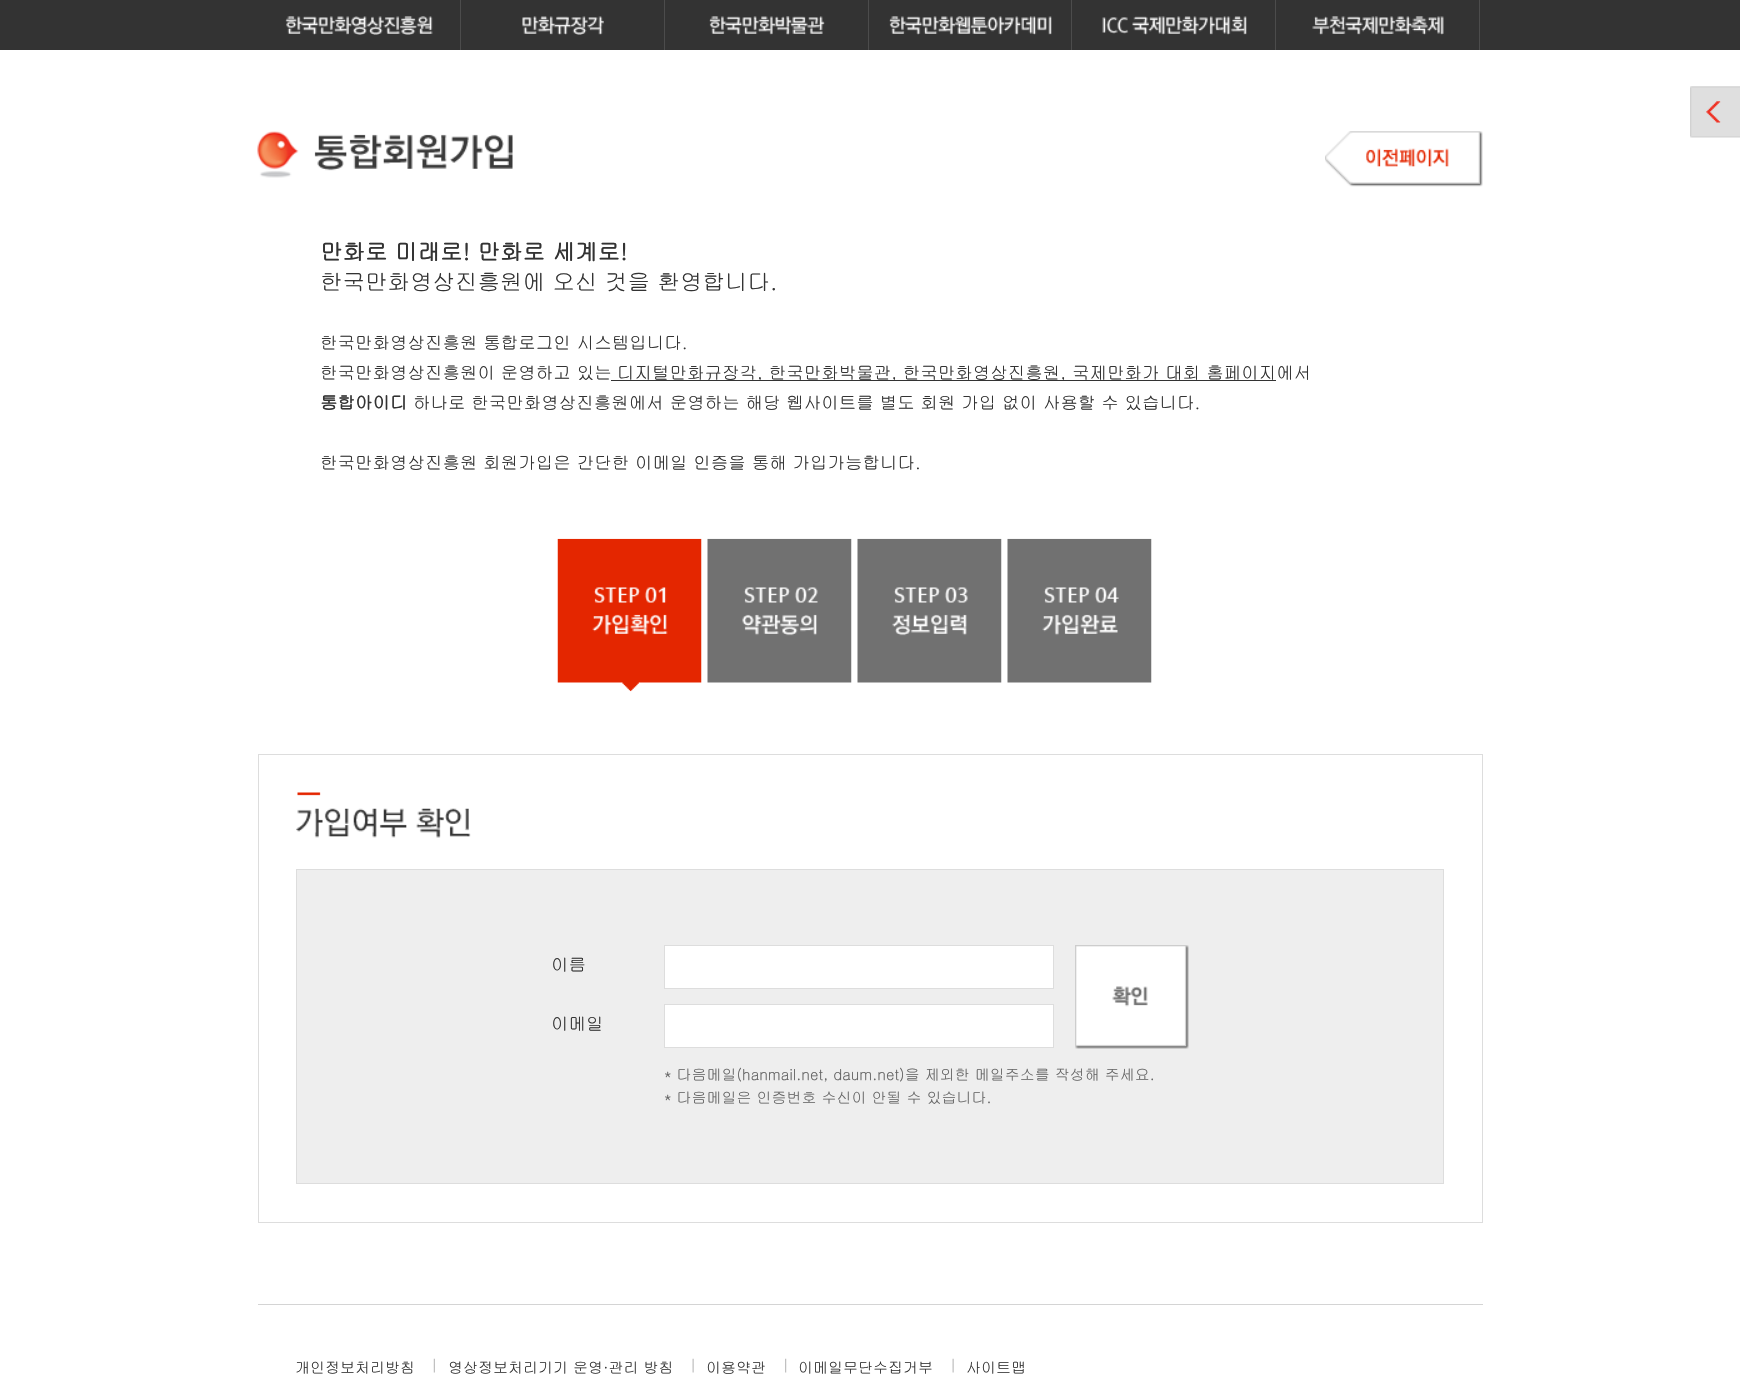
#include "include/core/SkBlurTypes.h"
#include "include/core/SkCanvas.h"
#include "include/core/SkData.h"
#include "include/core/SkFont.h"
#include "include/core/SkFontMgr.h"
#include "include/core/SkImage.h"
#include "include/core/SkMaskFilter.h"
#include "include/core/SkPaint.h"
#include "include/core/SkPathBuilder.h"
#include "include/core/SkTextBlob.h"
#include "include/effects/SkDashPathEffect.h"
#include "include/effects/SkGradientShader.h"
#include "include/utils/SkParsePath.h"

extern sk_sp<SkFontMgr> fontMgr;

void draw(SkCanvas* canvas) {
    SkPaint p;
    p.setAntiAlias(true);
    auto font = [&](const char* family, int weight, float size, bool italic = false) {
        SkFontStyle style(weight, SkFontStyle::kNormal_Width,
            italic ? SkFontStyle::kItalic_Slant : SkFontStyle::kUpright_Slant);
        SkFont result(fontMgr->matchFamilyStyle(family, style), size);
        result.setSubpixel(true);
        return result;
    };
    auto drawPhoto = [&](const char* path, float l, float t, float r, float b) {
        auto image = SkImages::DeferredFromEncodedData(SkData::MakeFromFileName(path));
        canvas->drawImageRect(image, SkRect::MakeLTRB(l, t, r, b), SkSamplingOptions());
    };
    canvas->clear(0xFFFFFFFF);
    drawPhoto("media/1.png", 1690, 86, 1740, 138);
    p.setColor(0xFF333333);
    canvas->drawRect(SkRect::MakeLTRB(0, 0, 1740, 50), p);
    p.setColor(0xFF4C4C4C);
    canvas->drawRect(SkRect::MakeLTRB(460, 0, 461, 50), p);
    drawPhoto("media/2.png", 285, 16, 433, 35);
    canvas->drawRect(SkRect::MakeLTRB(664, 0, 665, 50), p);
    drawPhoto("media/3.png", 522, 16, 604, 35);
    canvas->drawRect(SkRect::MakeLTRB(868, 0, 869, 50), p);
    drawPhoto("media/4.png", 709, 16, 825, 35);
    canvas->drawRect(SkRect::MakeLTRB(1071, 0, 1072, 50), p);
    drawPhoto("media/5.png", 889, 16, 1052, 35);
    canvas->drawRect(SkRect::MakeLTRB(1275, 0, 1276, 50), p);
    drawPhoto("media/6.png", 1102, 16, 1247, 35);
    canvas->drawRect(SkRect::MakeLTRB(1479, 0, 1480, 50), p);
    drawPhoto("media/7.png", 1312, 16, 1444, 35);
    drawPhoto("media/8.png", 257, 131, 513, 178);
    drawPhoto("media/9.png", 1325, 131, 1483, 187);
    auto font1 = font("Gulim", 700, 22.5f);
    p.setColor(0xFF333333);
    canvas->drawString("만화로 미래로! 만화로 세계로!", 320, 260, font1, p);
    auto font2 = font("Gulim", 400, 22.5f);
    canvas->drawString("한국만화영상진흥원에 오신 것을 환영합니다.", 320, 290, font2, p);
    auto font3 = font("Gulim", 400, 17.5f);
    canvas->drawString("한국만화영상진흥원 통합로그인 시스템입니다.", 320, 349, font3, p);
    canvas->drawString("한국만화영상진흥원이 운영하고 있는", 320, 379, font3, p);
    canvas->drawRect(SkRect::MakeLTRB(611, 380, 1276, 381), p);
    canvas->drawString("디지털만화규장각, 한국만화박물관, 한국만화영상진흥원, 국제만화가 대회 홈페이지에서", 617, 379, font3, p);
    auto font4 = font("Gulim", 700, 17.5f);
    canvas->drawString("통합아이디", 320, 409, font4, p);
    canvas->drawString("하나로 한국만화영상진흥원에서 운영하는 해당 웹사이트를 별도 회원 가입 없이 사용할 수 있습니다.", 413, 409, font3, p);
    canvas->drawString("한국만화영상진흥원 회원가입은 간단한 이메일 인증을 통해 가입가능합니다.", 320, 469, font3, p);
    drawPhoto("media/10.png", 557, 538, 702, 692);
    drawPhoto("media/11.png", 707, 538, 852, 683);
    drawPhoto("media/12.png", 857, 538, 1002, 683);
    drawPhoto("media/13.png", 1007, 538, 1152, 683);
    p.setStyle(SkPaint::kStroke_Style);
    p.setStrokeWidth(1);
    p.setColor(0xFFDDDDDD);
    canvas->drawRect(SkRect::MakeLTRB(258.5f, 754.5f, 1482.5f, 1222.5f), p);
    drawPhoto("media/14.png", 296, 792, 471, 838);
    p.setStyle(SkPaint::kFill_Style);
    p.setColor(0xFFEEEEEE);
    canvas->drawRect(SkRect::MakeLTRB(296.5f, 869.5f, 1443.5f, 1183.5f), p);
    p.setStyle(SkPaint::kStroke_Style);
    p.setColor(0xFFDDDDDD);
    canvas->drawRect(SkRect::MakeLTRB(296.5f, 869.5f, 1443.5f, 1183.5f), p);
    p.setStyle(SkPaint::kFill_Style);
    p.setColor(0xFF333333);
    canvas->drawString("이름", 551, 971, font3, p);
    p.setColor(0xFFFFFFFF);
    canvas->drawRect(SkRect::MakeLTRB(664.5f, 945.5f, 1053.5f, 988.5f), p);
    p.setStyle(SkPaint::kStroke_Style);
    p.setColor(0xFFDDDDDD);
    canvas->drawRect(SkRect::MakeLTRB(664.5f, 945.5f, 1053.5f, 988.5f), p);
    drawPhoto("media/15.png", 1075, 945, 1189, 1049);
    p.setStyle(SkPaint::kFill_Style);
    p.setColor(0xFF333333);
    canvas->drawString("이메일", 551, 1030, font3, p);
    p.setColor(0xFFFFFFFF);
    canvas->drawRect(SkRect::MakeLTRB(664.5f, 1004.5f, 1053.5f, 1047.5f), p);
    p.setStyle(SkPaint::kStroke_Style);
    p.setColor(0xFFDDDDDD);
    canvas->drawRect(SkRect::MakeLTRB(664.5f, 1004.5f, 1053.5f, 1047.5f), p);
    auto font5 = font("Gulim", 400, 15);
    p.setStyle(SkPaint::kFill_Style);
    p.setColor(0xFF666666);
    canvas->drawString("* 다음메일(hanmail.net, daum.net)을 제외한 메일주소를 작성해 주세요.", 664, 1080, font5, p);
    canvas->drawString("* 다음메일은 인증번호 수신이 안될 수 있습니다.", 664, 1103, font5, p);
    p.setColor(0xFFD4D4D4);
    canvas->drawRect(SkRect::MakeLTRB(258, 1304, 1483, 1305), p);
    p.setColor(0xFF333333);
    canvas->drawString("개인정보처리방침", 295, 1373, font5, p);
    drawPhoto("media/16.png", 433, 1358, 435, 1373);
    canvas->drawString("영상정보처리기기 운영·관리 방침", 448, 1373, font5, p);
    drawPhoto("media/17.png", 692, 1358, 694, 1373);
    canvas->drawString("이용약관", 706, 1373, font5, p);
    drawPhoto("media/18.png", 785, 1358, 787, 1373);
    canvas->drawString("이메일무단수집거부", 798, 1373, font5, p);
    drawPhoto("media/17.png", 952, 1358, 954, 1373);
    canvas->drawString("사이트맵", 966, 1373, font5, p);
}
